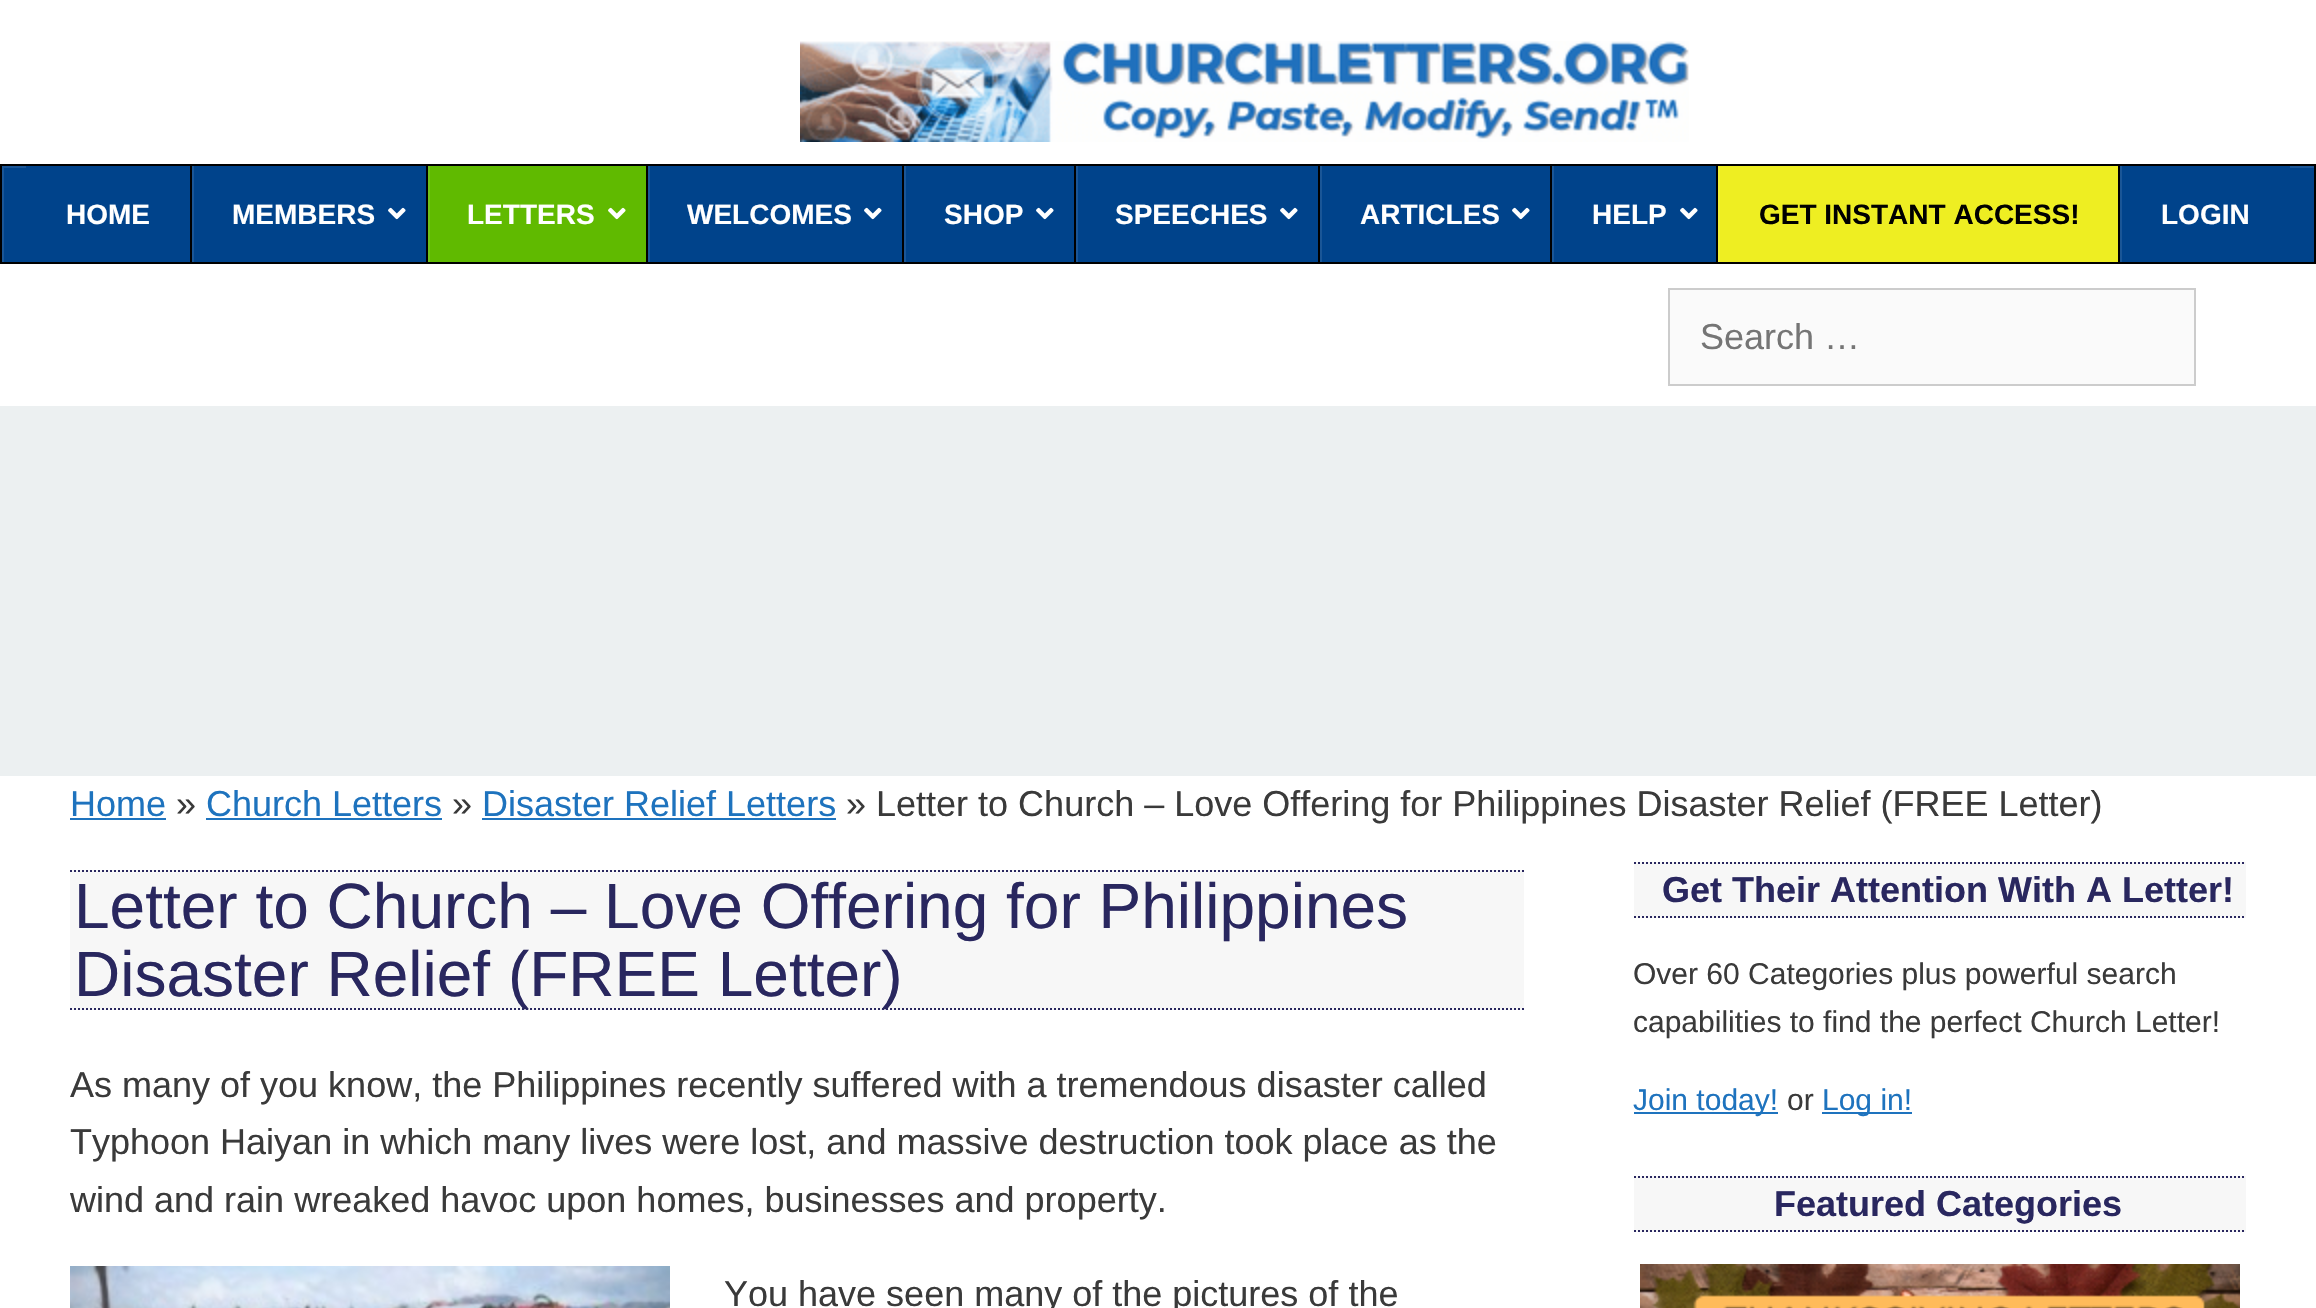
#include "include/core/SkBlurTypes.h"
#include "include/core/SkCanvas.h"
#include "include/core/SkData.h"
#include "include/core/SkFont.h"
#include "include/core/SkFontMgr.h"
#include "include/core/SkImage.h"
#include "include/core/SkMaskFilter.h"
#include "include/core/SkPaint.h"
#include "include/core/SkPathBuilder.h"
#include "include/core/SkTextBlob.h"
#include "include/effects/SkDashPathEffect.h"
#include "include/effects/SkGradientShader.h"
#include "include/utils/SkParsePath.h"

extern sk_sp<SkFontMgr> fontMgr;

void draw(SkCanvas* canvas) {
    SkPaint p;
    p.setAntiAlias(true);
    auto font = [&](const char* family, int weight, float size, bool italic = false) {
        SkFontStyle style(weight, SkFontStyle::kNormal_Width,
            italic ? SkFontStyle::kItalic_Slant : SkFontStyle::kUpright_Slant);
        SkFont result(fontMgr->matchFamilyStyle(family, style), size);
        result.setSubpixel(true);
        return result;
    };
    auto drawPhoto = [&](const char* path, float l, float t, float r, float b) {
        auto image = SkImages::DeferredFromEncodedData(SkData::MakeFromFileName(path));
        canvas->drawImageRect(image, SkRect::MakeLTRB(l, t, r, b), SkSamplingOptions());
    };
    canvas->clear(0xFFECF0F1);
    p.setColor(0xFFFFFFFF);
    canvas->drawRect(SkRect::MakeLTRB(0, 0, 2316, 164), p);
    drawPhoto("media/1.png", 800, 41, 1689, 142);
    p.setColor(0xFF00438B);
    canvas->drawRect(SkRect::MakeLTRB(4, 168, 2314, 262), p);
    canvas->save();
    canvas->clipRect(SkRect::MakeLTRB(2, 166, 2314, 262));
    p.setColor(0xFF1A5697);
    canvas->drawPath(SkPathBuilder(SkPathFillType::kEvenOdd).moveTo(-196, -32).lineTo(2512, -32).lineTo(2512, 460).lineTo(-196, 460).close().moveTo(4, 168).lineTo(2316, 168).lineTo(2316, 264).lineTo(4, 264).close().detach(), p);
    canvas->restore();
    p.setStyle(SkPaint::kStroke_Style);
    p.setStrokeWidth(2);
    p.setColor(0xFF000000);
    canvas->drawRect(SkRect::MakeLTRB(1, 165, 2315, 263), p);
    p.setStyle(SkPaint::kFill_Style);
    p.setColor(0xFF00438B);
    canvas->drawRect(SkRect::MakeLTRB(26, 166, 190, 168), p);
    auto font1 = font("Liberation Sans", 700, 28);
    p.setColor(0xFFFFFFFF);
    canvas->drawString("HOME", 66, 224, font1, p);
    {
        const struct { float l, t, r, b; SkColor color; } items[] = {
            {194, 166, 426, 168, 0xFF00438B},
            {192, 166, 194, 262, 0xFF1A5697},
            {190, 166, 192, 262, 0xFF000000},
        };
        for (auto [l, t, r, b, color] : items) {
            p.setColor(color);
            canvas->drawRect(SkRect::MakeLTRB(l, t, r, b), p);
        }
    }
    p.setColor(0xFFFFFFFF);
    canvas->drawString("MEMBERS", 232, 224, font1, p);
    drawPhoto("media/2.png", 388, 207, 406, 220);
    {
        const struct { float l, t, r, b; SkColor color; } items[] = {
            {430, 166, 646, 262, 0xFF60BA00},
            {428, 166, 430, 262, 0xFF70C11A},
            {426, 166, 428, 262, 0xFF000000},
        };
        for (auto [l, t, r, b, color] : items) {
            p.setColor(color);
            canvas->drawRect(SkRect::MakeLTRB(l, t, r, b), p);
        }
    }
    p.setColor(0xFFFFFFFF);
    canvas->drawString("LETTERS", 467, 224, font1, p);
    drawPhoto("media/3.png", 608, 207, 626, 220);
    {
        const struct { float l, t, r, b; SkColor color; } items[] = {
            {650, 166, 902, 168, 0xFF00438B},
            {648, 166, 650, 262, 0xFF1A5697},
            {646, 166, 648, 262, 0xFF000000},
        };
        for (auto [l, t, r, b, color] : items) {
            p.setColor(color);
            canvas->drawRect(SkRect::MakeLTRB(l, t, r, b), p);
        }
    }
    p.setColor(0xFFFFFFFF);
    canvas->drawString("WELCOMES", 687, 224, font1, p);
    drawPhoto("media/2.png", 864, 207, 882, 220);
    {
        const struct { float l, t, r, b; SkColor color; } items[] = {
            {906, 166, 1074, 168, 0xFF00438B},
            {904, 166, 906, 262, 0xFF1A5697},
            {902, 166, 904, 262, 0xFF000000},
        };
        for (auto [l, t, r, b, color] : items) {
            p.setColor(color);
            canvas->drawRect(SkRect::MakeLTRB(l, t, r, b), p);
        }
    }
    p.setColor(0xFFFFFFFF);
    canvas->drawString("SHOP", 944, 224, font1, p);
    drawPhoto("media/2.png", 1036, 207, 1054, 220);
    {
        const struct { float l, t, r, b; SkColor color; } items[] = {
            {1078, 166, 1318, 168, 0xFF00438B},
            {1076, 166, 1078, 262, 0xFF1A5697},
            {1074, 166, 1076, 262, 0xFF000000},
        };
        for (auto [l, t, r, b, color] : items) {
            p.setColor(color);
            canvas->drawRect(SkRect::MakeLTRB(l, t, r, b), p);
        }
    }
    p.setColor(0xFFFFFFFF);
    canvas->drawString("SPEECHES", 1115, 224, font1, p);
    drawPhoto("media/2.png", 1280, 207, 1298, 220);
    {
        const struct { float l, t, r, b; SkColor color; } items[] = {
            {1322, 166, 1550, 168, 0xFF00438B},
            {1320, 166, 1322, 262, 0xFF1A5697},
            {1318, 166, 1320, 262, 0xFF000000},
        };
        for (auto [l, t, r, b, color] : items) {
            p.setColor(color);
            canvas->drawRect(SkRect::MakeLTRB(l, t, r, b), p);
        }
    }
    p.setColor(0xFFFFFFFF);
    canvas->drawString("ARTICLES", 1360, 224, font1, p);
    drawPhoto("media/2.png", 1512, 207, 1530, 220);
    {
        const struct { float l, t, r, b; SkColor color; } items[] = {
            {1554, 166, 1716, 168, 0xFF00438B},
            {1552, 166, 1554, 262, 0xFF1A5697},
            {1550, 166, 1552, 262, 0xFF000000},
        };
        for (auto [l, t, r, b, color] : items) {
            p.setColor(color);
            canvas->drawRect(SkRect::MakeLTRB(l, t, r, b), p);
        }
    }
    p.setColor(0xFFFFFFFF);
    canvas->drawString("HELP", 1592, 224, font1, p);
    drawPhoto("media/2.png", 1680, 207, 1698, 220);
    {
        const struct { float l, t, r, b; SkColor color; } items[] = {
            {1720, 166, 2118, 262, 0xFFEEEE22},
            {1718, 166, 1720, 262, 0xFFF0F038},
            {1716, 166, 1718, 262, 0xFF000000},
        };
        for (auto [l, t, r, b, color] : items) {
            p.setColor(color);
            canvas->drawRect(SkRect::MakeLTRB(l, t, r, b), p);
        }
    }
    canvas->drawString("GET INSTANT ACCESS!", 1759, 224, font1, p);
    {
        const struct { float l, t, r, b; SkColor color; } items[] = {
            {2122, 166, 2290, 168, 0xFF00438B},
            {2120, 166, 2122, 262, 0xFF1A5697},
            {2118, 166, 2120, 262, 0xFF000000},
        };
        for (auto [l, t, r, b, color] : items) {
            p.setColor(color);
            canvas->drawRect(SkRect::MakeLTRB(l, t, r, b), p);
        }
    }
    p.setColor(0xFFFFFFFF);
    canvas->drawString("LOGIN", 2161, 224, font1, p);
    canvas->drawRect(SkRect::MakeLTRB(0, 264, 2316, 406), p);
    p.setColor(0xFFFAFAFA);
    canvas->drawRect(SkRect::MakeLTRB(1669, 289, 2195, 385), p);
    p.setStyle(SkPaint::kStroke_Style);
    p.setColor(0xFFCCCCCC);
    canvas->drawRect(SkRect::MakeLTRB(1669, 289, 2195, 385), p);
    auto font2 = font("Liberation Sans", 400, 36);
    p.setStyle(SkPaint::kFill_Style);
    p.setColor(0xFF757575);
    canvas->drawString("Search …", 1700, 349, font2, p);
    p.setColor(0xFFFFFFFF);
    canvas->drawRect(SkRect::MakeLTRB(0, 776, 2316, 1308), p);
    p.setColor(0xFF1E73BE);
    canvas->drawString("Home", 70, 816, font2, p);
    canvas->drawRect(SkRect::MakeLTRB(70, 818, 166, 820), p);
    p.setColor(0xFF3A3A3A);
    canvas->drawString("»", 176, 816, font2, p);
    p.setColor(0xFF1E73BE);
    canvas->drawString("Church Letters", 206, 816, font2, p);
    canvas->drawRect(SkRect::MakeLTRB(206, 818, 442, 820), p);
    p.setColor(0xFF3A3A3A);
    canvas->drawString("»", 452, 816, font2, p);
    p.setColor(0xFF1E73BE);
    canvas->drawString("Disaster Relief Letters", 482, 816, font2, p);
    canvas->drawRect(SkRect::MakeLTRB(482, 818, 836, 820), p);
    p.setColor(0xFF3A3A3A);
    canvas->drawString("» Letter to Church – Love Offering for Philippines Disaster Relief (FREE Letter)", 846, 816, font2, p);
    p.setColor(0xFFF7F7F7);
    canvas->drawRect(SkRect::MakeLTRB(70, 870, 1524, 1010), p);
    p.setStyle(SkPaint::kStroke_Style);
    p.setColor(0xFF29275F);
    p.setPathEffect(SkDashPathEffect::Make({{2, 2}}, 0));
    canvas->drawPath(SkPathBuilder().moveTo(70, 871).lineTo(1524, 871).detach(), p);
    p.setPathEffect(nullptr);
    p.setPathEffect(SkDashPathEffect::Make({{2, 2}}, 0));
    canvas->drawPath(SkPathBuilder().moveTo(70, 1009).lineTo(1524, 1009).detach(), p);
    p.setPathEffect(nullptr);
    auto font3 = font("Liberation Sans", 400, 64);
    p.setStyle(SkPaint::kFill_Style);
    canvas->drawString("Letter to Church – Love Offering for Philippines", 74, 928, font3, p);
    canvas->drawString("Disaster Relief (FREE Letter)", 74, 996, font3, p);
    p.setColor(0xFF3A3A3A);
    {
        const struct { const char* s; float x, y; } items[] = {
            {"As many of you know, the Philippines recently suffered with a tremendous disaster called", 70, 1097},
            {"Typhoon Haiyan in which many lives were lost, and massive destruction took place as the", 70, 1154},
            {"wind and rain wreaked havoc upon homes, businesses and property.", 70, 1212},
        };
        for (auto [s, x, y] : items) {
            canvas->drawString(s, x, y, font2, p);
        }
    }
    drawPhoto("media/4.png", 70, 1266, 670, 1308);
    canvas->drawString("You have seen many of the pictures of the", 724, 1306, font2, p);
    p.setColor(0xFFF7F7F7);
    canvas->drawRect(SkRect::MakeLTRB(1634, 862, 2246, 918), p);
    p.setStyle(SkPaint::kStroke_Style);
    p.setColor(0xFF29275F);
    p.setPathEffect(SkDashPathEffect::Make({{2, 2}}, 0));
    canvas->drawPath(SkPathBuilder().moveTo(1634, 863).lineTo(2246, 863).detach(), p);
    p.setPathEffect(nullptr);
    p.setPathEffect(SkDashPathEffect::Make({{2, 2}}, 0));
    canvas->drawPath(SkPathBuilder().moveTo(1634, 917).lineTo(2246, 917).detach(), p);
    p.setPathEffect(nullptr);
    auto font4 = font("Liberation Sans", 700, 36);
    p.setStyle(SkPaint::kFill_Style);
    canvas->drawString("Get Their Attention With A Letter!", 1662, 902, font4, p);
    auto font5 = font("Liberation Sans", 400, 30);
    p.setColor(0xFF3A3A3A);
    canvas->drawString("Over 60 Categories plus powerful search", 1633, 984, font5, p);
    canvas->drawString("capabilities to find the perfect Church Letter!", 1633, 1032, font5, p);
    p.setColor(0xFF1E73BE);
    canvas->drawRect(SkRect::MakeLTRB(1634, 1112, 1778, 1114), p);
    canvas->drawString("Join today!", 1633, 1110, font5, p);
    p.setColor(0xFF3A3A3A);
    canvas->drawString("or", 1787, 1110, font5, p);
    p.setColor(0xFF1E73BE);
    canvas->drawRect(SkRect::MakeLTRB(1822, 1112, 1912, 1114), p);
    canvas->drawString("Log in!", 1822, 1110, font5, p);
    p.setColor(0xFFF7F7F7);
    canvas->drawRect(SkRect::MakeLTRB(1634, 1176, 2246, 1232), p);
    p.setStyle(SkPaint::kStroke_Style);
    p.setColor(0xFF29275F);
    p.setPathEffect(SkDashPathEffect::Make({{2, 2}}, 0));
    canvas->drawPath(SkPathBuilder().moveTo(1634, 1177).lineTo(2246, 1177).detach(), p);
    p.setPathEffect(nullptr);
    p.setPathEffect(SkDashPathEffect::Make({{2, 2}}, 0));
    canvas->drawPath(SkPathBuilder().moveTo(1634, 1231).lineTo(2246, 1231).detach(), p);
    p.setPathEffect(nullptr);
    p.setStyle(SkPaint::kFill_Style);
    canvas->drawString("Featured Categories", 1774, 1216, font4, p);
    drawPhoto("media/5.png", 1640, 1264, 2240, 1308);
}
